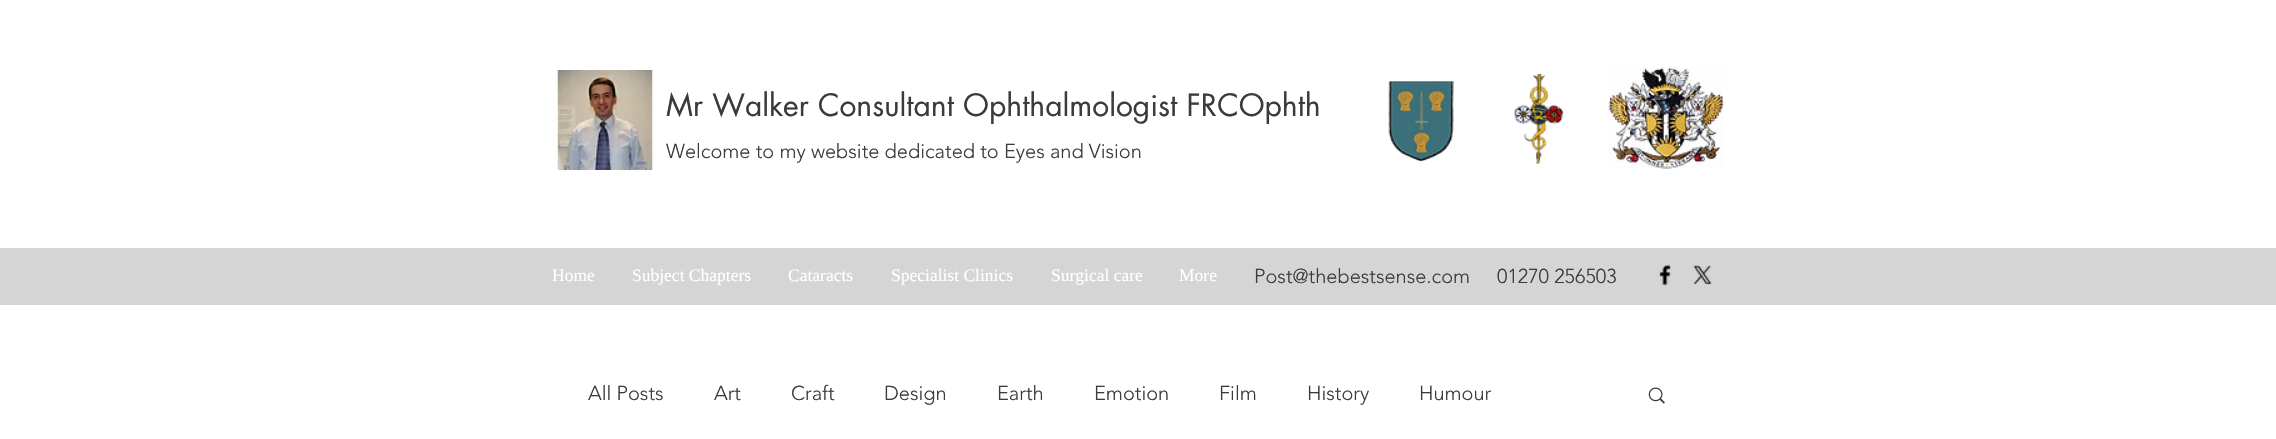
#include "include/core/SkBlurTypes.h"
#include "include/core/SkCanvas.h"
#include "include/core/SkData.h"
#include "include/core/SkFont.h"
#include "include/core/SkFontMgr.h"
#include "include/core/SkImage.h"
#include "include/core/SkMaskFilter.h"
#include "include/core/SkPaint.h"
#include "include/core/SkPathBuilder.h"
#include "include/core/SkTextBlob.h"
#include "include/effects/SkDashPathEffect.h"
#include "include/effects/SkGradientShader.h"
#include "include/utils/SkParsePath.h"

extern sk_sp<SkFontMgr> fontMgr;

void draw(SkCanvas* canvas) {
    SkPaint p;
    p.setAntiAlias(true);
    auto font = [&](const char* family, int weight, float size, bool italic = false) {
        SkFontStyle style(weight, SkFontStyle::kNormal_Width,
            italic ? SkFontStyle::kItalic_Slant : SkFontStyle::kUpright_Slant);
        SkFont result(fontMgr->matchFamilyStyle(family, style), size);
        result.setSubpixel(true);
        return result;
    };
    auto drawPhoto = [&](const char* path, float l, float t, float r, float b) {
        auto image = SkImages::DeferredFromEncodedData(SkData::MakeFromFileName(path));
        canvas->drawImageRect(image, SkRect::MakeLTRB(l, t, r, b), SkSamplingOptions());
    };
    canvas->clear(0xFFFFFFFF);
    drawPhoto("media/1.png", 1388, 81, 1454, 162);
    drawPhoto("media/2.png", 1514, 73, 1564, 164);
    drawPhoto("media/3.png", 1608, 67, 1724, 169);
    drawPhoto("media/4.png", 557, 70, 653, 170);
    auto font1 = font("futura", 400, 30);
    p.setColor(0xFF3A3B3F);
    canvas->drawString("Mr Walker Consultant Ophthalmologist FRCOphth", 666, 116, font1, p);
    auto font2 = font("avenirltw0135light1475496", 300, 20);
    canvas->drawString("Welcome to my website dedicated to Eyes and Vision", 666, 158, font2, p);
    p.setColor(0xFFD5D5D5);
    canvas->drawRect(SkRect::MakeLTRB(0, 248, 2276, 305), p);
    auto font3 = font("Liberation Serif", 400, 17.5f);
    p.setColor(0xFFFFFFFF);
    {
        const struct { const char* s; float x, y; } items[] = {
            {"Home", 552, 281},
            {"Subject Chapters", 632, 281},
            {"Cataracts", 788, 281},
            {"Specialist Clinics", 891, 281},
            {"Surgical care", 1051, 281},
            {"More", 1179, 281},
        };
        for (auto [s, x, y] : items) {
            canvas->drawString(s, x, y, font3, p);
        }
    }
    p.setColor(0xFF3A3B3F);
    canvas->drawString("Post@thebestsense.com", 1254, 283, font2, p);
    canvas->drawString("01270 256503", 1497, 283, font2, p);
    drawPhoto("media/5.png", 1659, 264, 1671, 286);
    drawPhoto("media/6.png", 1693, 265, 1712, 285);
    {
        const struct { const char* s; float x, y; } items[] = {
            {"All Posts", 588, 400},
            {"Art", 714, 400},
            {"Craft", 791, 400},
            {"Design", 884, 400},
            {"Earth", 997, 400},
            {"Emotion", 1094, 400},
            {"Film", 1219, 400},
            {"History", 1307, 400},
            {"Humour", 1419, 400},
        };
        for (auto [s, x, y] : items) {
            canvas->drawString(s, x, y, font2, p);
        }
    }
    drawPhoto("media/7.png", 1648, 387, 1665, 404);
}
